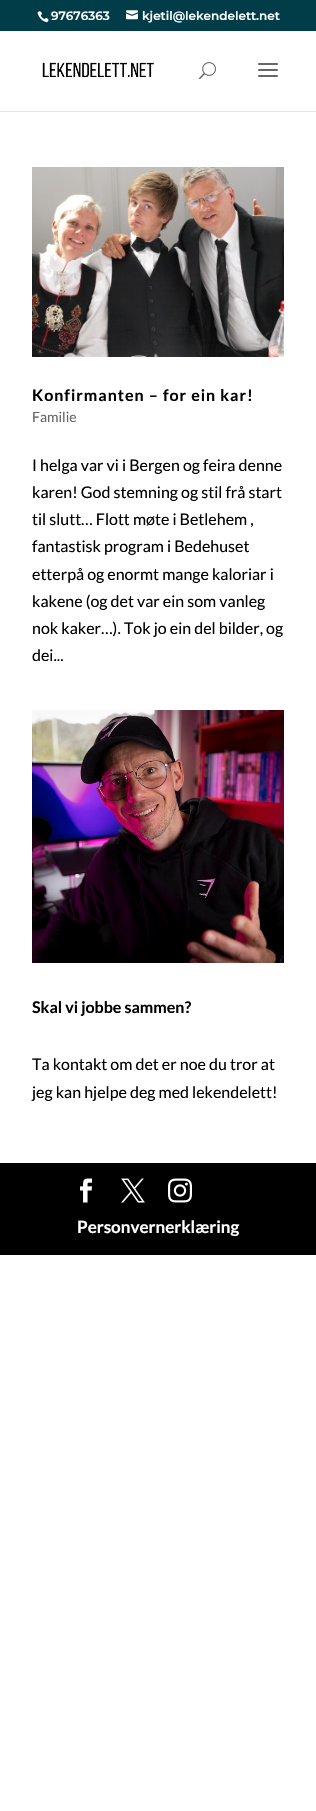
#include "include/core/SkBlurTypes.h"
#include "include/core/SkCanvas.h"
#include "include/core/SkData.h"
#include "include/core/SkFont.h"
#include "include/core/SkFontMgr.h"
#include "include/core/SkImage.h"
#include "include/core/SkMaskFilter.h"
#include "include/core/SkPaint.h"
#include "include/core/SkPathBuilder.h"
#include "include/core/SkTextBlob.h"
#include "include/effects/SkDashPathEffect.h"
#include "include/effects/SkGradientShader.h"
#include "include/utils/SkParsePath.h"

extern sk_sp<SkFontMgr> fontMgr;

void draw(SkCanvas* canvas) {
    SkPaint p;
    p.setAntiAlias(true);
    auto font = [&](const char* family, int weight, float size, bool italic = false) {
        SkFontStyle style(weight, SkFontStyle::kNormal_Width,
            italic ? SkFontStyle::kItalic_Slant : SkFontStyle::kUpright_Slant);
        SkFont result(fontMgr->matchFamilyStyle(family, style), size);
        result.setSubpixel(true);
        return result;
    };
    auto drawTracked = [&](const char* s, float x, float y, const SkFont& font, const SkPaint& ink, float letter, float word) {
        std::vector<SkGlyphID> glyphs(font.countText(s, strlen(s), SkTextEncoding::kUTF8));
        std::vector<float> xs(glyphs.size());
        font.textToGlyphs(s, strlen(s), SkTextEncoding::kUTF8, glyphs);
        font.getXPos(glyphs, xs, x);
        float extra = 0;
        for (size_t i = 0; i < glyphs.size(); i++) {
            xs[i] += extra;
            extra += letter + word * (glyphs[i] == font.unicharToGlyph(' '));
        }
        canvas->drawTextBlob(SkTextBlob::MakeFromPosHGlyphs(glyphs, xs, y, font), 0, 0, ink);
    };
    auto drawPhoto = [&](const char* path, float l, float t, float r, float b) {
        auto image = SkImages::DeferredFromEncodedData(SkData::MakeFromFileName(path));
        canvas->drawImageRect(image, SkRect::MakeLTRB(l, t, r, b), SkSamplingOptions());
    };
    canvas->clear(0xFFFFFFFF);
    p.setColor(0xFF003D49);
    canvas->drawRect(SkRect::MakeLTRB(0, 0, 316, 31), p);
    drawPhoto("media/1.png", 37, 11, 49, 23);
    auto font1 = font("Montserrat", 600, 12);
    p.setColor(0xFFFFFFFF);
    canvas->drawString("97676363", 51, 20, font1, p);
    drawPhoto("media/2.png", 126, 10, 138, 20);
    canvas->drawString("kjetil@lekendelett.net", 142, 20, font1, p);
    p.setColor(0xFFE6E6E6);
    canvas->drawRect(SkRect::MakeLTRB(0, 111, 316, 112), p);
    drawPhoto("media/3.png", 42, 62, 154, 78);
    drawPhoto("media/4.png", 199, 62, 216, 80);
    drawPhoto("media/5.png", 258, 63, 278, 77);
    drawPhoto("media/6.png", 32, 167, 284, 357);
    auto font2 = font("Lato", 700, 16);
    p.setColor(0xFF000000);
    drawTracked("Konfirmanten – for ein kar!", 32, 401, font2, p, 1, 0);
    auto font3 = font("Lato", 400, 14);
    p.setColor(0xFF666666);
    canvas->drawString("Familie", 32, 422, font3, p);
    auto font4 = font("Lato", 400, 16);
    p.setColor(0xFF000000);
    {
        const struct { const char* s; float x, y; } items[] = {
            {"I helga var vi i Bergen og feira denne", 32, 471},
            {"karen! God stemning og stil frå start", 32, 498},
            {"til slutt… Flott møte i Betlehem ,", 32, 525},
            {"fantastisk program i Bedehuset", 32, 552},
            {"etterpå og enormt mange kaloriar i", 32, 580},
            {"kakene (og det var ein som vanleg", 32, 607},
            {"nok kaker…). Tok jo ein del bilder, og", 32, 634},
            {"dei...", 32, 661},
        };
        for (auto [s, x, y] : items) {
            canvas->drawString(s, x, y, font4, p);
        }
    }
    drawPhoto("media/7.png", 32, 710, 284, 963);
    canvas->drawString("Skal vi jobbe sammen?", 32, 1013, font2, p);
    canvas->drawString("Ta kontakt om det er noe du tror at", 32, 1070, font4, p);
    canvas->drawString("jeg kan hjelpe deg med lekendelett!", 32, 1098, font4, p);
    canvas->drawRect(SkRect::MakeLTRB(0, 1163, 316, 1255), p);
    drawPhoto("media/8.png", 80, 1178, 93, 1203);
    drawPhoto("media/9.png", 121, 1178, 145, 1203);
    drawPhoto("media/10.png", 168, 1178, 192, 1203);
    auto font5 = font("Lato", 700, 17);
    p.setColor(0xFFFFFFFF);
    canvas->drawString("Personvernerklæring", 77, 1233, font5, p);
}
